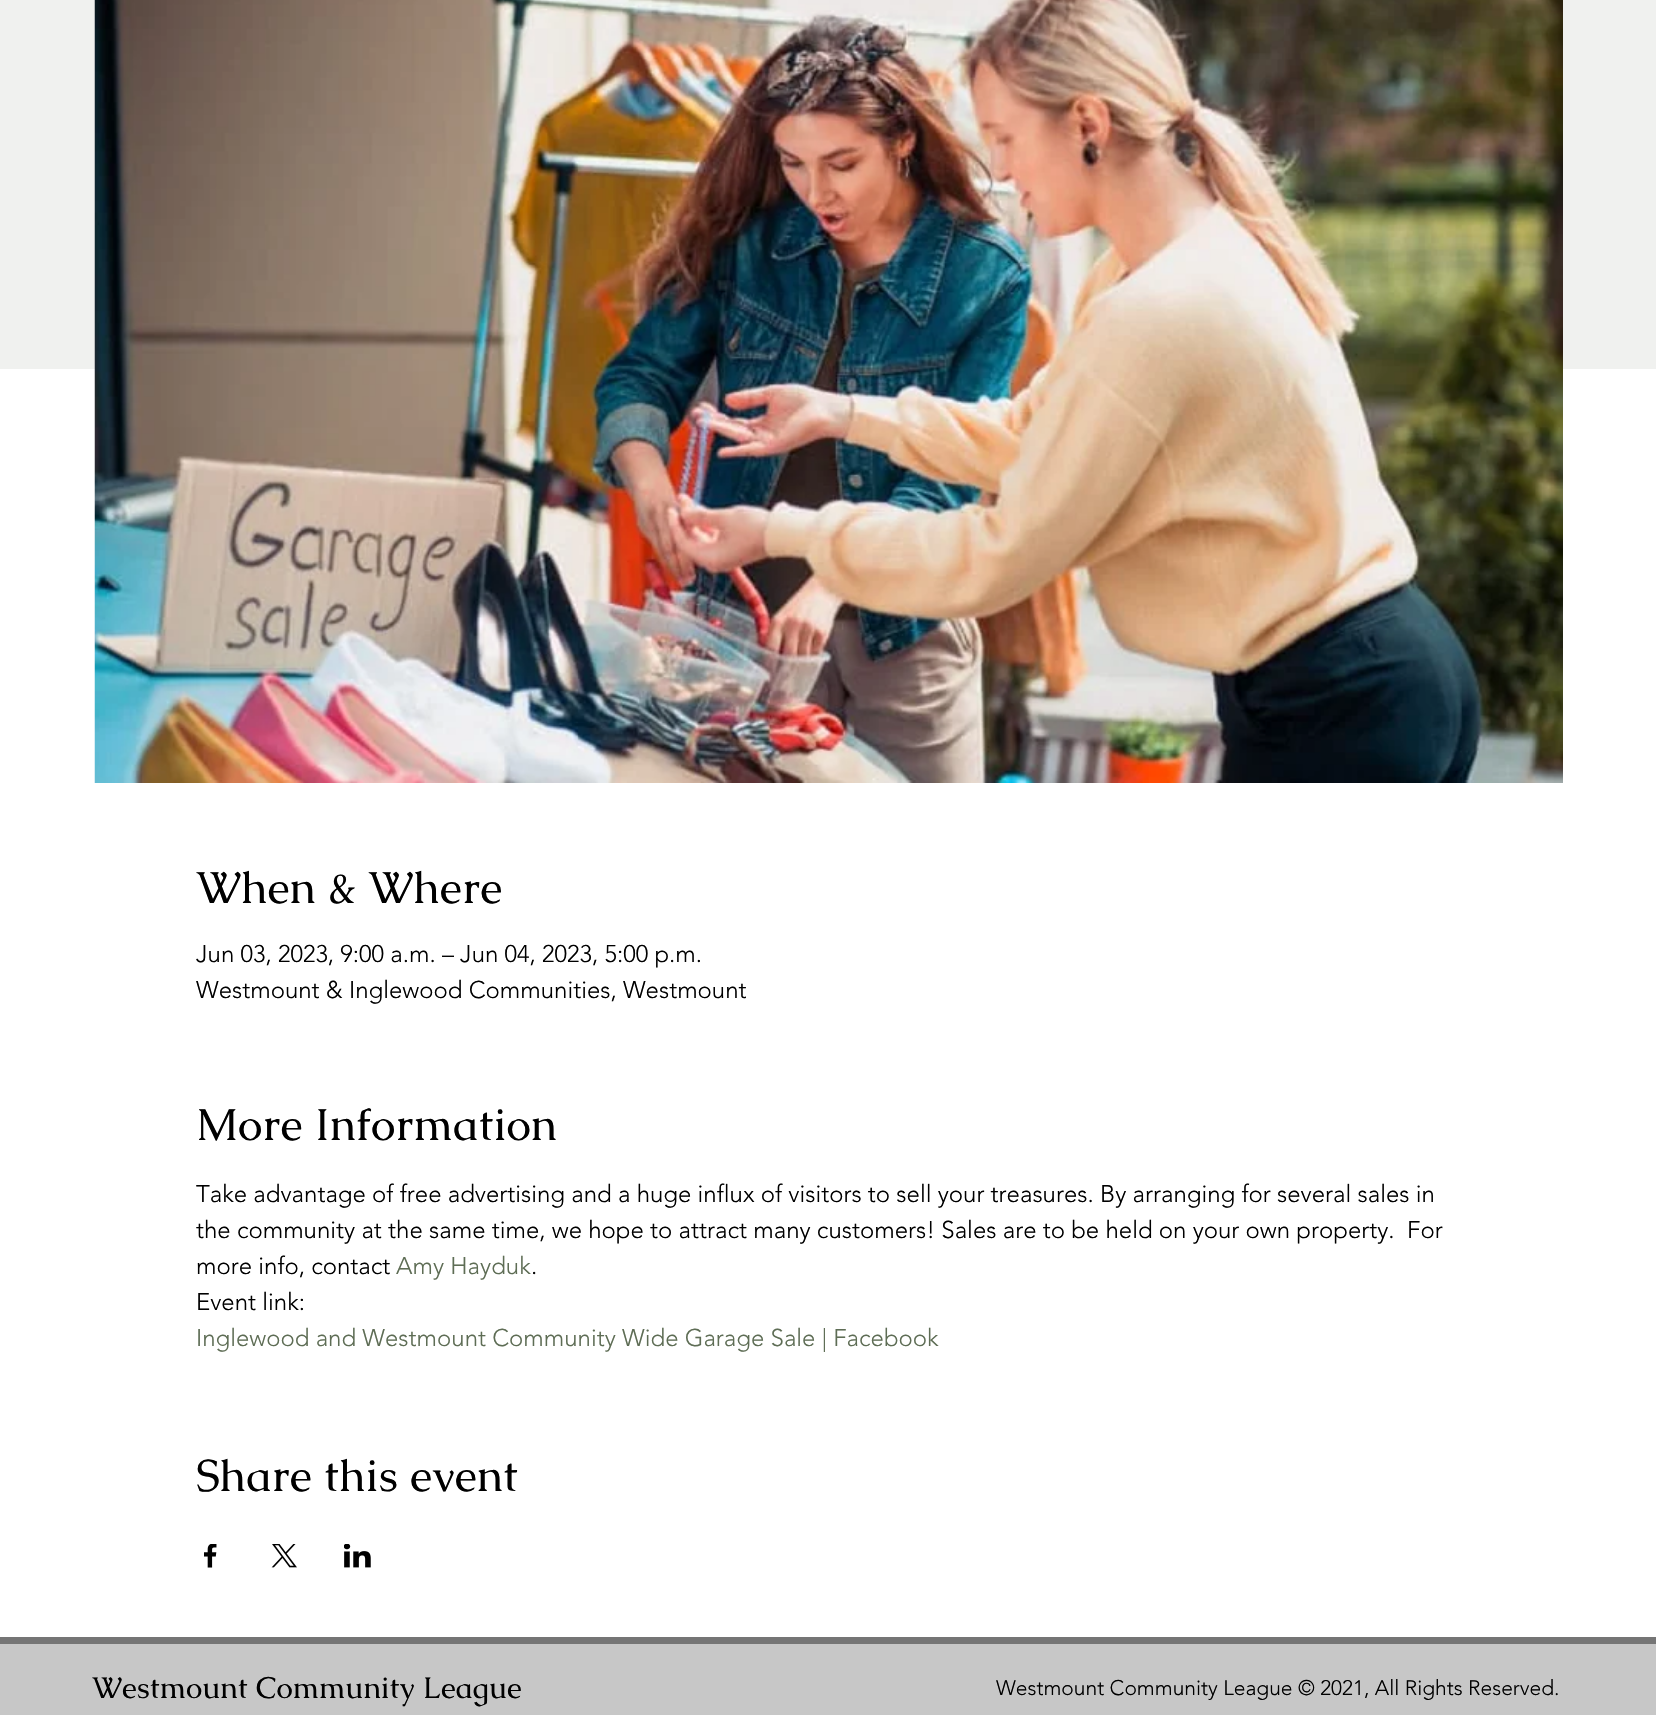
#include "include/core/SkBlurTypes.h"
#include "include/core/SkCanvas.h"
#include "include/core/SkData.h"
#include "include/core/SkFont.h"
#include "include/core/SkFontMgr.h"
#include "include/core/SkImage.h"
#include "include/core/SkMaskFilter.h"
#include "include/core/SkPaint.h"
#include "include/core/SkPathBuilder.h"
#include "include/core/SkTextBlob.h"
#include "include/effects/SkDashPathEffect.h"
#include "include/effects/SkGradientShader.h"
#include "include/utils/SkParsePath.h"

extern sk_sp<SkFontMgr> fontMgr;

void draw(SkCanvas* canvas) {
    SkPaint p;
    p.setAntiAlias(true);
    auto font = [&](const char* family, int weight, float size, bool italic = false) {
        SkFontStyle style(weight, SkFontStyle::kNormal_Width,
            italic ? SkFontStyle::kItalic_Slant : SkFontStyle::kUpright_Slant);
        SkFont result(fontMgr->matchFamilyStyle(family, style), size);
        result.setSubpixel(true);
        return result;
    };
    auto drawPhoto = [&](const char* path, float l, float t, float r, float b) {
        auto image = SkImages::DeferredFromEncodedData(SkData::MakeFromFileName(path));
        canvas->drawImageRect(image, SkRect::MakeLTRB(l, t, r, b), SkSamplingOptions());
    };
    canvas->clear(0xFFFFFFFF);
    p.setColor(0xFFF0F1EF);
    canvas->drawRect(SkRect::MakeLTRB(0, 0, 1656, 369), p);
    drawPhoto("media/1.png", 94, 0, 1563, 783);
    auto font1 = font("Caudex", 400, 45);
    p.setColor(0xFF000000);
    canvas->drawString("When & Where", 196, 903, font1, p);
    auto font2 = font("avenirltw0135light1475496", 300, 24);
    canvas->drawString("Jun 03, 2023, 9:00 a.m. – Jun 04, 2023, 5:00 p.m.", 196, 962, font2, p);
    canvas->drawString("Westmount & Inglewood Communities, Westmount", 196, 998, font2, p);
    canvas->drawString("More Information", 196, 1140, font1, p);
    {
        const struct { const char* s; float x, y; } items[] = {
            {"Take advantage of free advertising and a huge influx of visitors to sell your treasures. By arranging for several sales in", 196, 1202},
            {"the community at the same time, we hope to attract many customers! Sales are to be held on your own property.  For", 196, 1238},
            {"more info, contact", 196, 1274},
        };
        for (auto [s, x, y] : items) {
            canvas->drawString(s, x, y, font2, p);
        }
    }
    p.setColor(0xFF5E6D55);
    canvas->drawString("Amy Hayduk", 396, 1274, font2, p);
    p.setColor(0xFF000000);
    canvas->drawString(".", 531, 1274, font2, p);
    canvas->drawString("Event link:", 196, 1310, font2, p);
    p.setColor(0xFF5E6D55);
    canvas->drawString("Inglewood and Westmount Community Wide Garage Sale | Facebook", 196, 1346, font2, p);
    p.setColor(0xFF000000);
    canvas->drawString("Share this event", 196, 1491, font1, p);
    drawPhoto("media/2.png", 204, 1544, 217, 1568);
    drawPhoto("media/3.png", 271, 1544, 297, 1568);
    drawPhoto("media/4.png", 344, 1544, 371, 1568);
    p.setColor(0xFFC7C7C7);
    canvas->drawRect(SkRect::MakeLTRB(0, 1644, 1656, 1715), p);
    p.setColor(0xFF757575);
    canvas->drawRect(SkRect::MakeLTRB(0, 1637, 1656, 1644), p);
    auto font3 = font("Caudex", 400, 30);
    p.setColor(0xFF000000);
    canvas->drawString("Westmount Community League", 92, 1698, font3, p);
    auto font4 = font("avenirltw0135light1475496", 300, 21);
    canvas->drawString("Westmount Community League © 2021, All Rights Reserved.", 996, 1695, font4, p);
}
